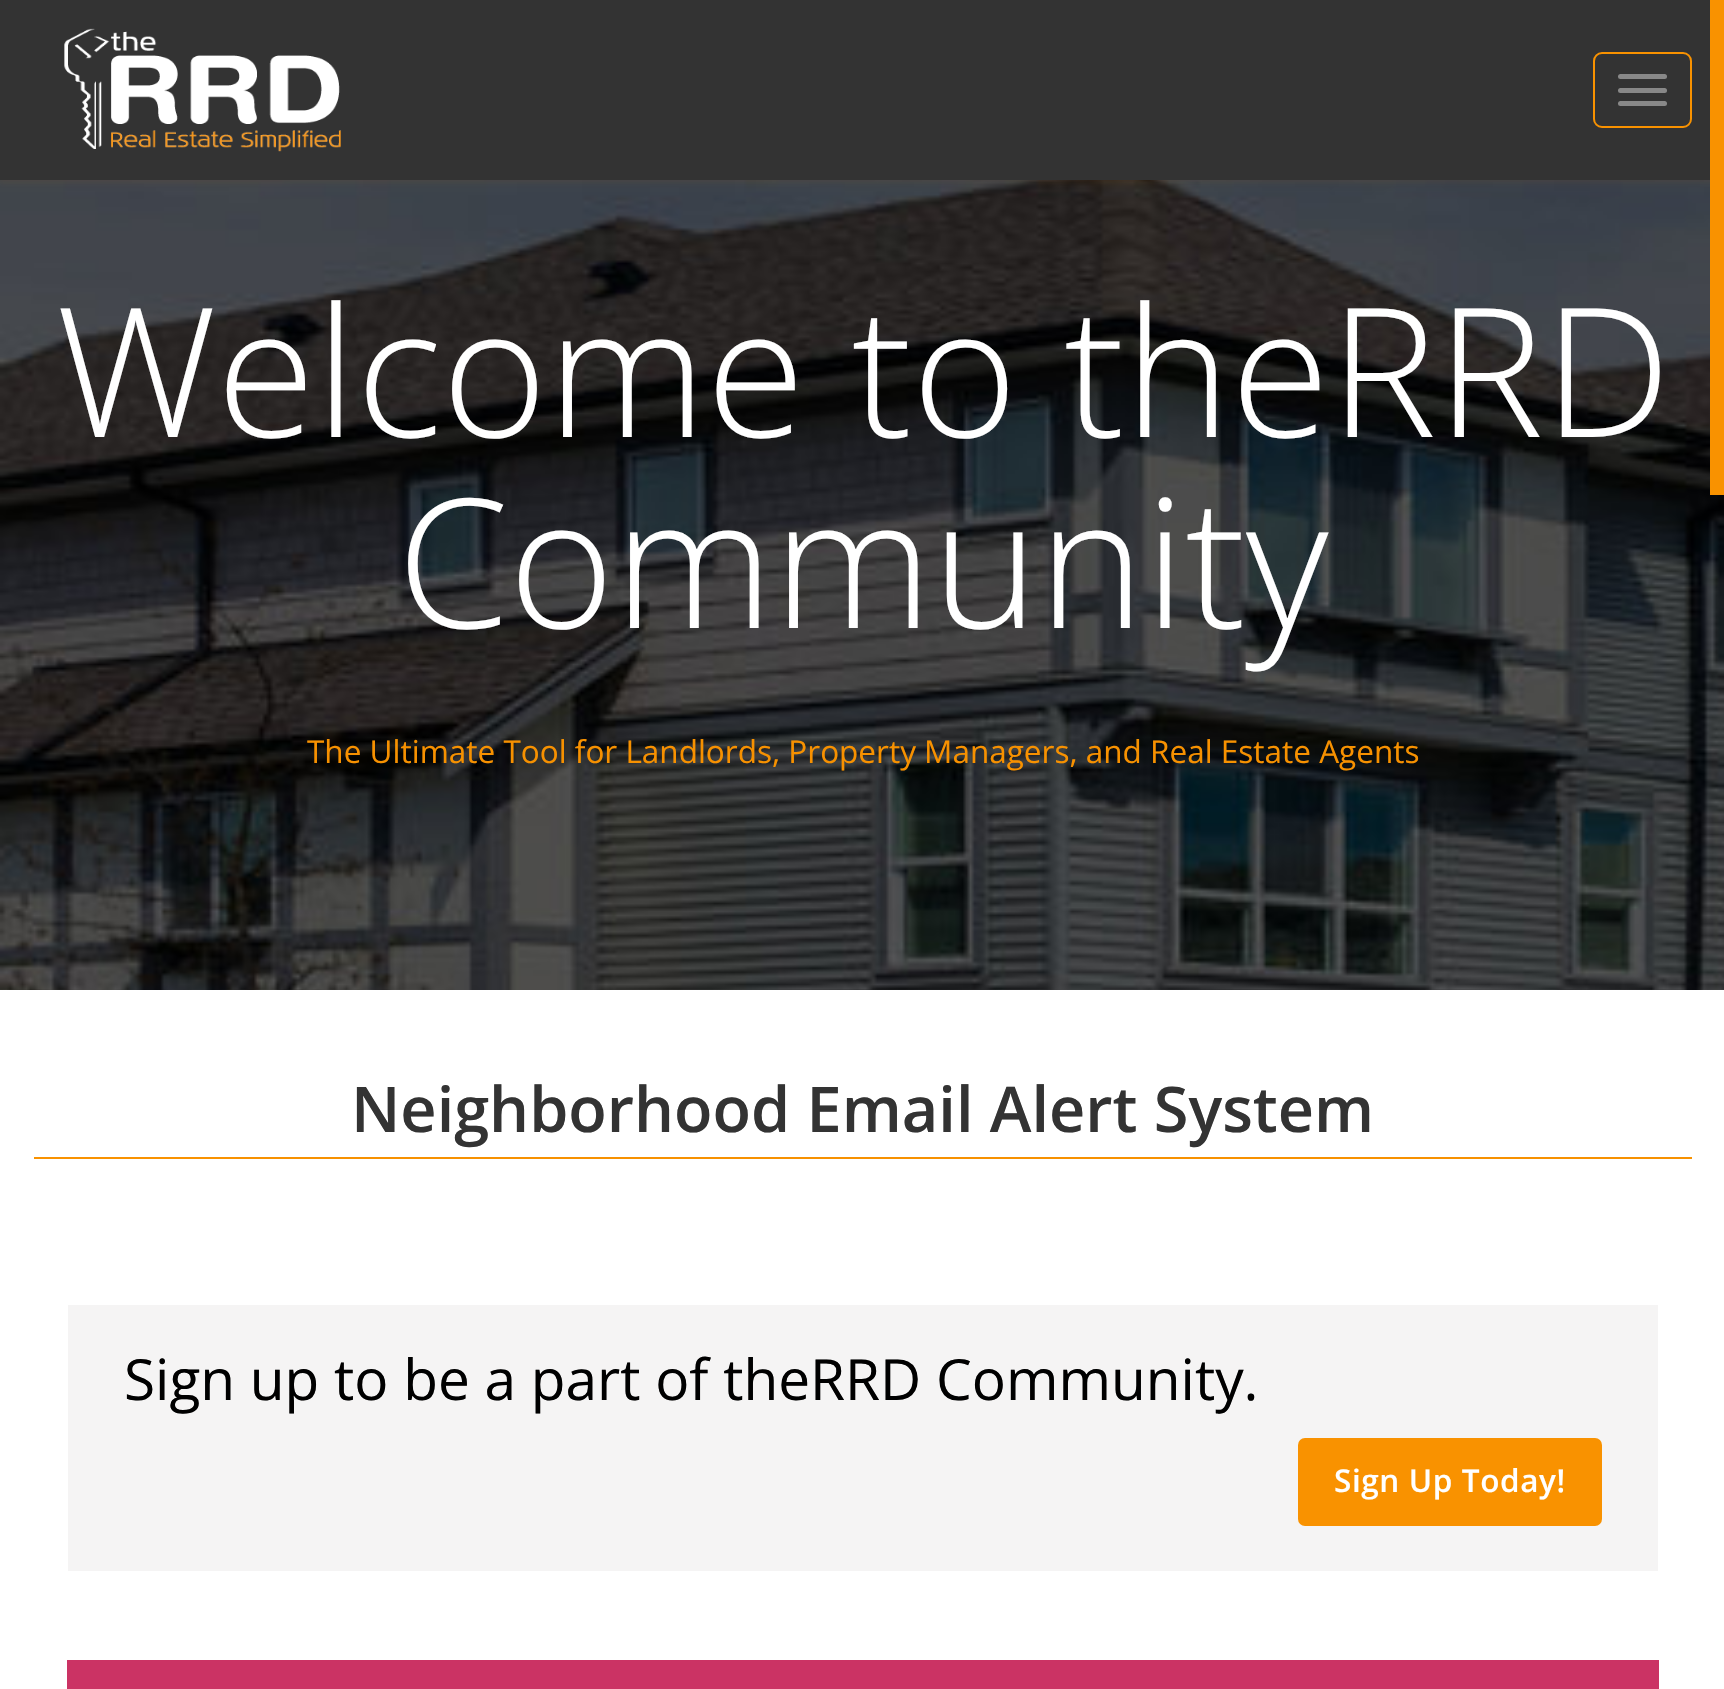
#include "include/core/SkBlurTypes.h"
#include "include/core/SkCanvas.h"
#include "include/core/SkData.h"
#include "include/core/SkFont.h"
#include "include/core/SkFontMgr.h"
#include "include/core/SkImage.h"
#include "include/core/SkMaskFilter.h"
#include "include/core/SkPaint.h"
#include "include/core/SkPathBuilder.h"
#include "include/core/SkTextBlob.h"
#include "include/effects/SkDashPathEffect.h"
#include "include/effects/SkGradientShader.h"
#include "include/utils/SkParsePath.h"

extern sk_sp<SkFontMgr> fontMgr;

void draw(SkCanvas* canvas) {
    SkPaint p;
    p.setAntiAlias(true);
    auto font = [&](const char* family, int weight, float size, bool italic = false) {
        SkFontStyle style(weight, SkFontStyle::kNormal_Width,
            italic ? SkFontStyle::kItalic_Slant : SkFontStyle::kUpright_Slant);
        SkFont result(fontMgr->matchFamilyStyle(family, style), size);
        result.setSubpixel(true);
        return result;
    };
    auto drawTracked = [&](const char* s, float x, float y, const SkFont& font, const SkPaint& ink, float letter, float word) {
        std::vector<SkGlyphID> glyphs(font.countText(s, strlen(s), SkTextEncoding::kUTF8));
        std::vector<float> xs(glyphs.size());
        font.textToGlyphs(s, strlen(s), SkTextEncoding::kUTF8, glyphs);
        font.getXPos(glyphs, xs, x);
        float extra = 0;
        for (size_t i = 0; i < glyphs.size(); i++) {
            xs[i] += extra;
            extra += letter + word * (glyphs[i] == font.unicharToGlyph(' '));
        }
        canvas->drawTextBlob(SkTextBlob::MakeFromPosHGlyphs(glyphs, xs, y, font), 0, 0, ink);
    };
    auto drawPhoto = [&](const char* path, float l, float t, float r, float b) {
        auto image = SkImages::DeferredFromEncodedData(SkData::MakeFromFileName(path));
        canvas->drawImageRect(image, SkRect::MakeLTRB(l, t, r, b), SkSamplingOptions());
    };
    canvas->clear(0xFFFFFFFF);
    drawPhoto("media/2.png", 0, 180, 1724, 990);
    p.setColor(0x1AD97500);
    p.setMaskFilter(SkMaskFilter::MakeBlur(kNormal_SkBlurStyle, 3.5f));
    canvas->drawRect(SkRect::MakeLTRB(-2, 2, 1724, 182), p);
    p.setMaskFilter(nullptr);
    p.setColor(0xFF333333);
    canvas->drawRect(SkRect::MakeLTRB(0, 0, 1710, 180), p);
    drawPhoto("media/1.png", 64, 28, 341, 152);
    p.setStyle(SkPaint::kStroke_Style);
    p.setStrokeWidth(2);
    p.setColor(0xFFF99200);
    canvas->drawRoundRect(SkRect::MakeLTRB(1594, 53, 1691, 127), 8, 8, p);
    p.setStyle(SkPaint::kFill_Style);
    p.setColor(0xFF888888);
    canvas->drawRoundRect(SkRect::MakeLTRB(1618, 74, 1667, 79), 2.5f, 2.5f, p);
    canvas->drawRoundRect(SkRect::MakeLTRB(1618, 88, 1667, 93), 2.5f, 2.5f, p);
    canvas->drawRoundRect(SkRect::MakeLTRB(1618, 101, 1667, 106), 2.5f, 2.5f, p);
    auto font1 = font("Open Sans", 300, 180);
    p.setColor(0xFFFFFFFF);
    canvas->drawString("Welcome to theRRD", 56, 437, font1, p);
    canvas->drawString("Community", 397, 628, font1, p);
    auto font2 = font("Open Sans", 400, 31.5f);
    p.setColor(0xFFF79100);
    canvas->drawString("The Ultimate Tool for Landlords, Property Managers, and Real Estate Agents", 307, 763, font2, p);
    p.setColor(0xFFF99200);
    canvas->drawRect(SkRect::MakeLTRB(1710, 0, 1724, 495), p);
    p.setColor(0xFFF79100);
    canvas->drawRect(SkRect::MakeLTRB(236, 1157, 1692, 1159), p);
    auto font3 = font("Open Sans", 600, 63);
    p.setColor(0xFF333333);
    canvas->drawString("Neighborhood Email Alert System", 351, 1132, font3, p);
    p.setColor(0xFFF99200);
    canvas->drawRect(SkRect::MakeLTRB(34, 1157, 236, 1159), p);
    p.setColor(0xFFF5F4F4);
    canvas->drawRect(SkRect::MakeLTRB(68, 1305, 1658, 1571), p);
    auto font4 = font("Open Sans", 400, 56.75f);
    p.setColor(0xFF000000);
    canvas->drawString("Sign up to be a part of theRRD Community.", 124, 1400, font4, p);
    p.setColor(0xFFF99200);
    canvas->drawRoundRect(SkRect::MakeLTRB(1298, 1438, 1602, 1526), 7, 7, p);
    auto font5 = font("Open Sans", 600, 31.5f);
    p.setColor(0xFFFFFFFF);
    drawTracked("Sign Up Today!", 1334, 1492, font5, p, 0.6f, 0);
    p.setColor(0xFFCB3364);
    canvas->drawRect(SkRect::MakeLTRB(67, 1660, 1659, 1689), p);
}
